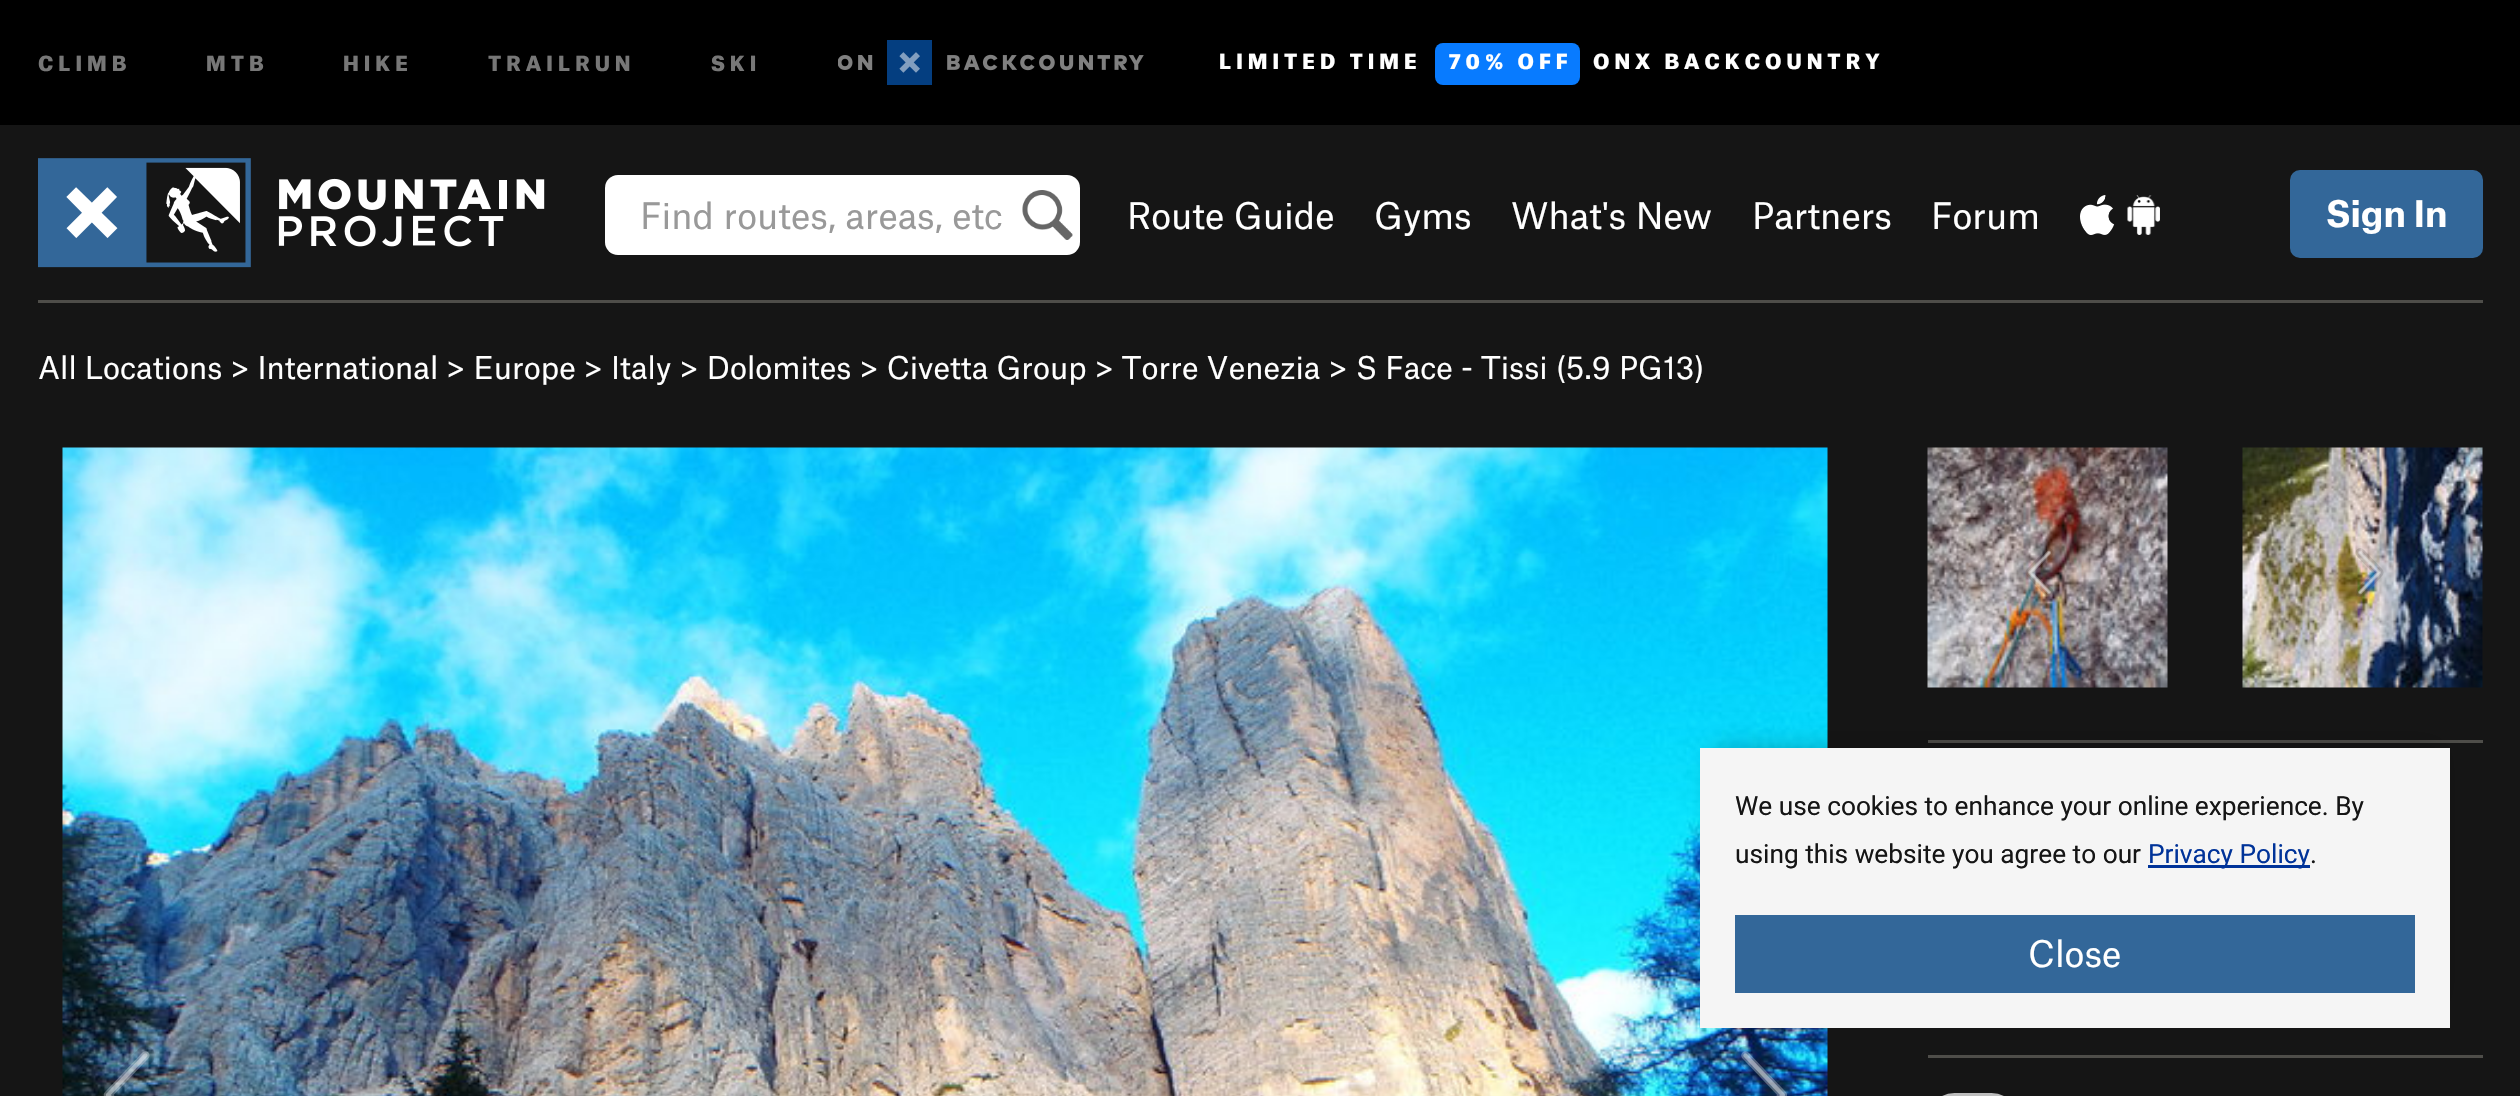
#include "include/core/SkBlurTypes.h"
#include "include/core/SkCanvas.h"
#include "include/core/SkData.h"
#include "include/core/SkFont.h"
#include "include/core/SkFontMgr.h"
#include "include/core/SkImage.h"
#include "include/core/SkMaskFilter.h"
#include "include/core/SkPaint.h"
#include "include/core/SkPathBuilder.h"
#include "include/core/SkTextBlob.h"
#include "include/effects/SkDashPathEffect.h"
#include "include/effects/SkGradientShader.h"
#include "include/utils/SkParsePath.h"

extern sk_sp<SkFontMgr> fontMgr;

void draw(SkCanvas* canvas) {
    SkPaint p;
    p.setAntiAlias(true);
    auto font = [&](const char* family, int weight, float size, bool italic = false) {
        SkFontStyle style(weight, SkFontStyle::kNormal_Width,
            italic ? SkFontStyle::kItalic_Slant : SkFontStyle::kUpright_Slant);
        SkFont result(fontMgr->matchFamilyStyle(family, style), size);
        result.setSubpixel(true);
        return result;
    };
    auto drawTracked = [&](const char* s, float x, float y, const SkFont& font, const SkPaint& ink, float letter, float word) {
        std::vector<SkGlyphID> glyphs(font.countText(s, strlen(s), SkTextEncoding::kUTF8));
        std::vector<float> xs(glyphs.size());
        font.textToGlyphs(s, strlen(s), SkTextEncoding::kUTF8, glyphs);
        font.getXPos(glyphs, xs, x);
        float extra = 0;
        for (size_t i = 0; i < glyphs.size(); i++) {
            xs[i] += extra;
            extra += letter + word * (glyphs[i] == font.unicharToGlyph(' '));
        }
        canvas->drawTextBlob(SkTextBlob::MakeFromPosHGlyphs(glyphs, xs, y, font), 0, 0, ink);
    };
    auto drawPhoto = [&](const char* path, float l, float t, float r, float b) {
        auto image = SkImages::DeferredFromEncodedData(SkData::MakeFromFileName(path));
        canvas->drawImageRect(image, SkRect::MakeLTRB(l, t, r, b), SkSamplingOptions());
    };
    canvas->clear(0xFF151515);
    p.setColor(0xFF000000);
    canvas->drawRect(SkRect::MakeLTRB(0, 0, 2520, 125), p);
    auto font1 = font("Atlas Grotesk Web", 900, 20);
    p.setColor(0xFF777777);
    {
        const struct { const char* s; float x, y; } items[] = {
            {"CLIMB", 38, 71},
            {"MTB", 206, 71},
            {"HIKE", 343, 71},
            {"TRAILRUN", 488, 71},
            {"SKI", 711, 71},
        };
        for (auto [s, x, y] : items) {
            drawTracked(s, x, y, font1, p, 5, 0);
        }
    }
    drawPhoto("media/1.png", 838, 40, 1144, 85);
    p.setColor(0xFFFFFFFF);
    drawTracked("LIMITED TIME", 1219, 69, font1, p, 5, 0);
    p.setColor(0xFF087BFF);
    canvas->drawRoundRect(SkRect::MakeLTRB(1435, 43, 1580, 85), 8, 8, p);
    p.setColor(0xFFFFFFFF);
    drawTracked("70% OFF", 1449, 69, font1, p, 5, 0);
    drawTracked("ONX BACKCOUNTRY", 1593, 69, font1, p, 5, 0);
    drawPhoto("media/2.png", 38, 158, 545, 268);
    canvas->drawRoundRect(SkRect::MakeLTRB(605, 175, 1080, 255), 13, 13, p);
    drawPhoto("media/3.png", 1022, 190, 1073, 240);
    auto font2 = font("Atlas Grotesk Web", 400, 35);
    p.setColor(0xFF999999);
    canvas->drawString("Find routes, areas, etc", 640, 229, font2, p);
    p.setColor(0xFFFFFFFF);
    {
        const struct { const char* s; float x, y; } items[] = {
            {"Route Guide", 1127, 229},
            {"Gyms", 1374, 229},
            {"What's New", 1511, 229},
            {"Partners", 1752, 229},
            {"Forum", 1931, 229},
        };
        for (auto [s, x, y] : items) {
            canvas->drawString(s, x, y, font2, p);
        }
    }
    drawPhoto("media/4.png", 2080, 195, 2115, 235);
    drawPhoto("media/5.png", 2127, 195, 2160, 235);
    p.setColor(0xFF336799);
    canvas->drawRoundRect(SkRect::MakeLTRB(2290, 170, 2483, 258), 10, 10, p);
    auto font3 = font("Atlas Grotesk Web", 700, 35);
    p.setColor(0xFFFFFFFF);
    canvas->drawString("Sign In", 2326, 227, font3, p);
    p.setColor(0xFF4E4D49);
    canvas->drawRect(SkRect::MakeLTRB(38, 300, 2483, 303), p);
    auto font4 = font("Atlas Grotesk Web", 400, 30);
    p.setColor(0xFFFFFFFF);
    canvas->drawString("All Locations > International > Europe > Italy > Dolomites > Civetta Group > Torre Venezia > S Face - Tissi (5.9 PG13)", 38, 379, font4, p);
    drawPhoto("media/6.png", 62, 447, 1828, 1096);
    drawPhoto("media/7.png", 99, 1046, 155, 1096);
    drawPhoto("media/8.png", 1736, 1046, 1792, 1096);
    drawPhoto("media/9.png", 1927, 447, 2168, 688);
    drawPhoto("media/10.png", 2025, 548, 2054, 597);
    drawPhoto("media/11.png", 2242, 447, 2483, 688);
    drawPhoto("media/12.png", 2355, 548, 2384, 597);
    p.setColor(0xFF4E4D49);
    canvas->drawRect(SkRect::MakeLTRB(1928, 740, 2483, 743), p);
    canvas->drawRect(SkRect::MakeLTRB(1928, 1055, 2483, 1058), p);
    drawPhoto("media/13.png", 1956, 1093, 1989, 1096);
    p.setStyle(SkPaint::kStroke_Style);
    p.setStrokeWidth(5);
    p.setColor(0xFFBDBDBD);
    canvas->drawRoundRect(SkRect::MakeLTRB(1930.5f, 1095.5f, 2015.5f, 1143.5f), 42.5f, 42.5f, p);
    p.setStyle(SkPaint::kFill_Style);
    p.setColor(0x40000000);
    p.setMaskFilter(SkMaskFilter::MakeBlur(kNormal_SkBlurStyle, 12.5f));
    canvas->drawRect(SkRect::MakeLTRB(1713, 748, 2438, 1003), p);
    p.setMaskFilter(nullptr);
    p.setColor(0xFFF5F5F5);
    canvas->drawRect(SkRect::MakeLTRB(1700, 748, 2450, 1028), p);
    auto font5 = font("Roboto", 400, 26.25f);
    p.setColor(0xFF151515);
    canvas->drawString("We use cookies to enhance your online experience. By", 1735, 815, font5, p);
    canvas->drawString("using this website you agree to our", 1735, 863, font5, p);
    p.setColor(0xFF003399);
    canvas->drawRect(SkRect::MakeLTRB(2148, 865, 2310, 868), p);
    canvas->drawString("Privacy Policy", 2148, 863, font5, p);
    p.setColor(0xFF151515);
    canvas->drawString(".", 2310, 863, font5, p);
    p.setColor(0xFF336799);
    canvas->drawRect(SkRect::MakeLTRB(1735, 915, 2415, 993), p);
    p.setColor(0xFFFFFFFF);
    canvas->drawString("Close", 2028, 967, font2, p);
}
